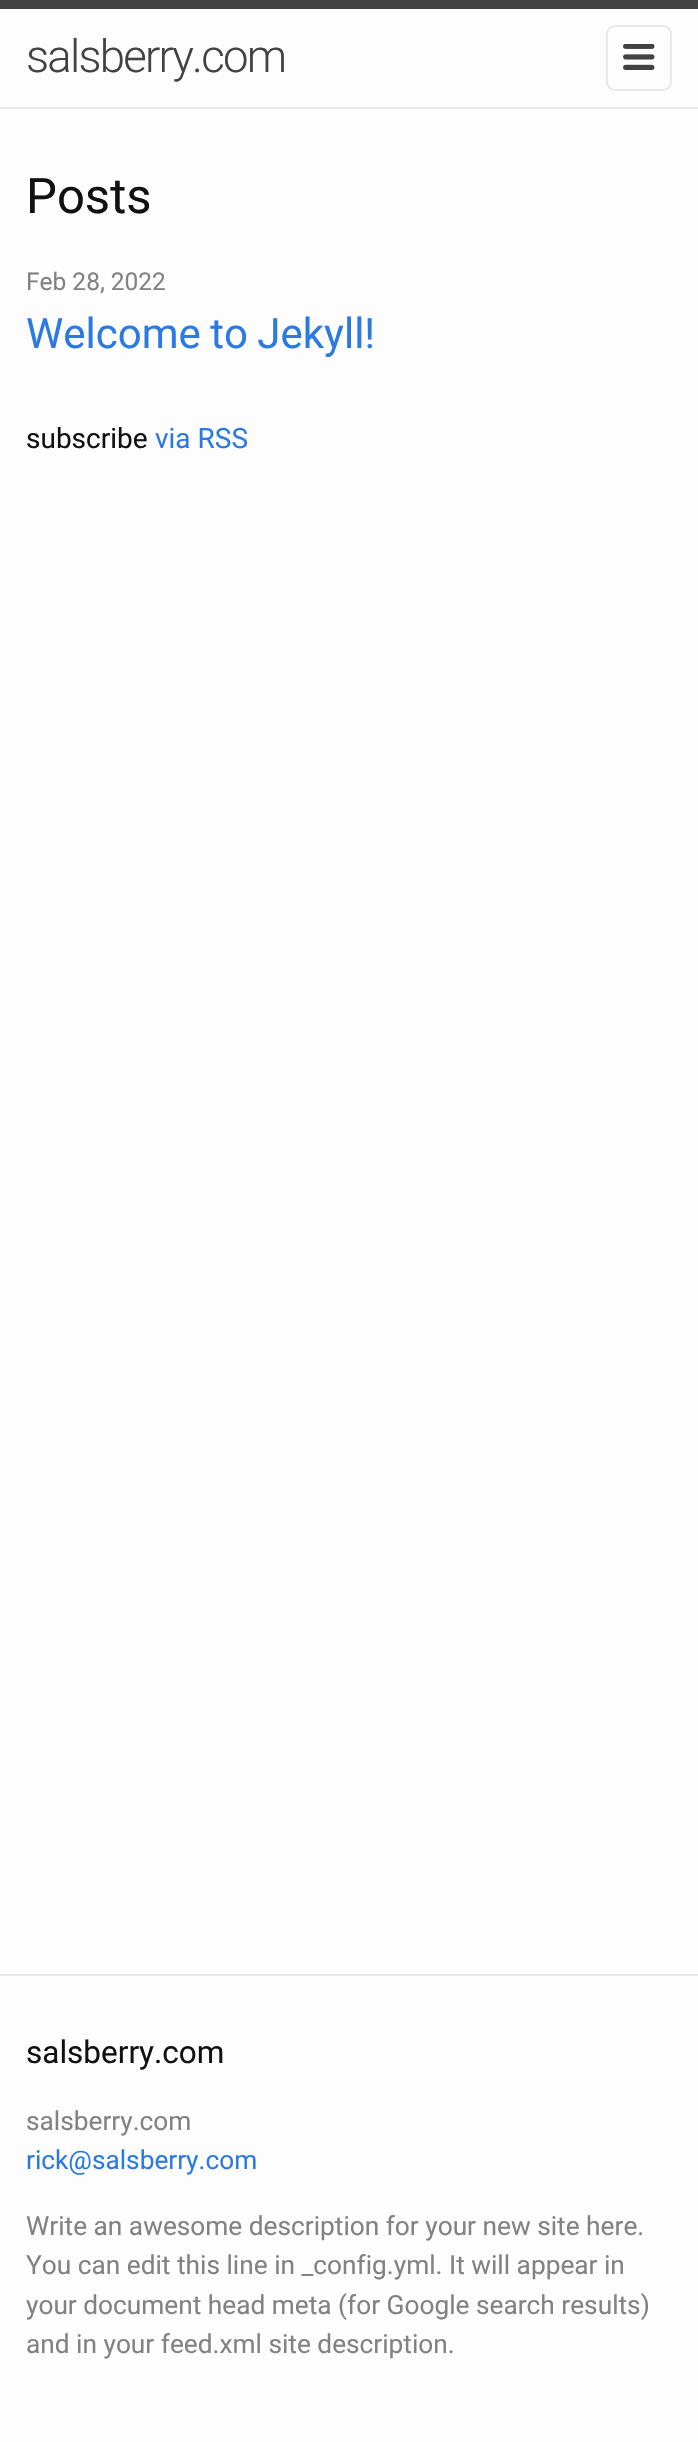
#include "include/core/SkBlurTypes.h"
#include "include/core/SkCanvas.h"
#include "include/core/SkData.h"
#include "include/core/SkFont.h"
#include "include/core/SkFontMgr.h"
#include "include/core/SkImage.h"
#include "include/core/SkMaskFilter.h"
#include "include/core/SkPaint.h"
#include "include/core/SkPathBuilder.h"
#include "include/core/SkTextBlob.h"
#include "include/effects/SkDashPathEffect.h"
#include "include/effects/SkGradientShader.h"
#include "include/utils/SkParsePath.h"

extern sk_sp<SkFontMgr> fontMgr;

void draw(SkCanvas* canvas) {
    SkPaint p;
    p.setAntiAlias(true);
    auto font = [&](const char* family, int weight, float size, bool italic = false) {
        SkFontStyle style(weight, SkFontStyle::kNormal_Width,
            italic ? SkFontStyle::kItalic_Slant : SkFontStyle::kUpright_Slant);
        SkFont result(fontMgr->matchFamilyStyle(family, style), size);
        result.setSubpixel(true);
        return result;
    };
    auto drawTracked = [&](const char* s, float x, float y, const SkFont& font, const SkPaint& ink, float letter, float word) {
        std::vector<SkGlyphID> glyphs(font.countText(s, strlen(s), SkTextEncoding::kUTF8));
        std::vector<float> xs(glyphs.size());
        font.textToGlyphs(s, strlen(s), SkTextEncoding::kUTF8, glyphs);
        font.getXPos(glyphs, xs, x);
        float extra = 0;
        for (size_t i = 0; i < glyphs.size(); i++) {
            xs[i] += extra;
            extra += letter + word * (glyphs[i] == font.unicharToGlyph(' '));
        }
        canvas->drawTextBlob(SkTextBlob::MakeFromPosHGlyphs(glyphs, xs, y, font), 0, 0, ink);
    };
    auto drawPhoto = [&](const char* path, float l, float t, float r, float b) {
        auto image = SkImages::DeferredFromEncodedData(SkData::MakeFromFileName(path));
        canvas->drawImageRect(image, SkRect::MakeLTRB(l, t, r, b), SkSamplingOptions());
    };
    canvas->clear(0xFFFDFDFD);
    p.setColor(0xFF424242);
    canvas->drawRect(SkRect::MakeLTRB(0, 0, 698, 9), p);
    p.setColor(0xFFE8E8E8);
    canvas->drawRect(SkRect::MakeLTRB(0, 107, 698, 109), p);
    auto font1 = font("Roboto", 300, 45.5f);
    p.setColor(0xFF424242);
    drawTracked("salsberry.com", 26, 72, font1, p, -1.75f, 0);
    p.setStyle(SkPaint::kStroke_Style);
    p.setStrokeWidth(2);
    p.setColor(0xFFE8E8E8);
    canvas->drawRoundRect(SkRect::MakeLTRB(607, 26, 671, 90), 8, 8, p);
    drawPhoto("media/1.png", 623, 44, 655, 70);
    auto font2 = font("Roboto", 400, 49);
    p.setStyle(SkPaint::kFill_Style);
    p.setColor(0xFF111111);
    canvas->drawString("Posts", 26, 213, font2, p);
    auto font3 = font("Roboto", 400, 24.5f);
    p.setColor(0xFF828282);
    canvas->drawString("Feb 28, 2022", 26, 290, font3, p);
    auto font4 = font("Roboto", 400, 42);
    p.setColor(0xFF2A7AE2);
    drawTracked("Welcome to Jekyll!", 26, 348, font4, p, 0, -1);
    auto font5 = font("Roboto", 400, 28);
    p.setColor(0xFF111111);
    canvas->drawString("subscribe", 26, 448, font5, p);
    p.setColor(0xFF2A7AE2);
    canvas->drawString("via RSS", 155, 448, font5, p);
    p.setColor(0xFFE8E8E8);
    canvas->drawRect(SkRect::MakeLTRB(0, 1974, 698, 1976), p);
    auto font6 = font("Roboto", 400, 31.5f);
    p.setColor(0xFF111111);
    canvas->drawString("salsberry.com", 26, 2063, font6, p);
    auto font7 = font("Roboto", 400, 26.25f);
    p.setColor(0xFF828282);
    canvas->drawString("salsberry.com", 26, 2130, font7, p);
    p.setColor(0xFF2A7AE2);
    canvas->drawString("rick@salsberry.com", 26, 2169, font7, p);
    p.setColor(0xFF828282);
    {
        const struct { const char* s; float x, y; } items[] = {
            {"Write an awesome description for your new site here.", 26, 2235},
            {"You can edit this line in _config.yml. It will appear in", 26, 2274},
            {"your document head meta (for Google search results)", 26, 2314},
            {"and in your feed.xml site description.", 26, 2353},
        };
        for (auto [s, x, y] : items) {
            canvas->drawString(s, x, y, font7, p);
        }
    }
}
